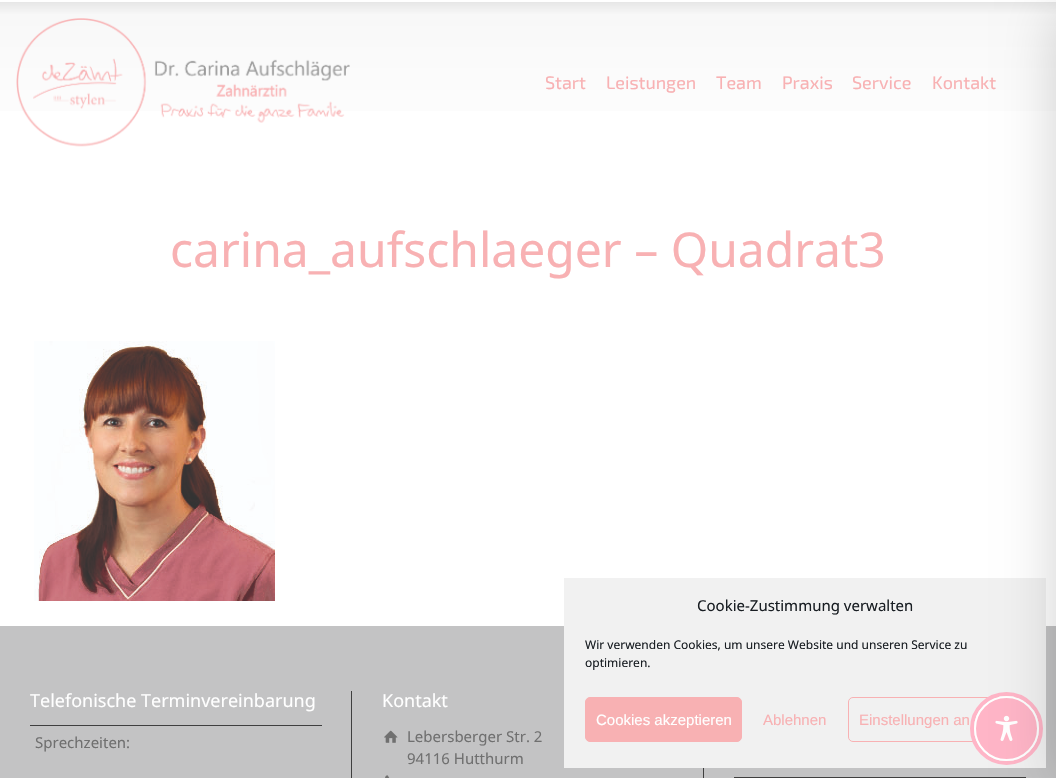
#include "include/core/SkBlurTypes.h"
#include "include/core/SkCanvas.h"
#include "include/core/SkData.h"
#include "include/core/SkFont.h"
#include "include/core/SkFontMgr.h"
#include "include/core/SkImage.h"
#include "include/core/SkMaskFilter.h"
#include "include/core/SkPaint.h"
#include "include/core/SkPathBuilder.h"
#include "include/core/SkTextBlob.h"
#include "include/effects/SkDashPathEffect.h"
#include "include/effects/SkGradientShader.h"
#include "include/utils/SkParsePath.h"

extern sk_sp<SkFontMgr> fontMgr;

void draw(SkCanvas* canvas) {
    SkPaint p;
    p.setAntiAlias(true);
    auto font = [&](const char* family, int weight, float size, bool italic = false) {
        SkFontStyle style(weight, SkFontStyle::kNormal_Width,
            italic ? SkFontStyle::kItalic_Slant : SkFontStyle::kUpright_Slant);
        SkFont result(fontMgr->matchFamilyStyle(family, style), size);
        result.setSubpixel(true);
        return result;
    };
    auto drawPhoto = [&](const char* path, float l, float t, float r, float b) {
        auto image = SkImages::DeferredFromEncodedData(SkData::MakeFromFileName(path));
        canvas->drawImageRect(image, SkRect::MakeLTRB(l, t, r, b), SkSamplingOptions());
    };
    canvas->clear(0xFFFFFFFF);
    {
        const SkColor colors[] = {0xFFFFFFFF, 0xFFE6E6E6, 0xFFF8F8F8, 0xFFFFFFFF};
        const float stops[] = {0.01f, 0.01f, 0.09f, 1};
        const SkPoint ends[] = {{528, 0}, {528, 165}};
        p.setShader(SkGradientShader::MakeLinear(ends, colors, stops, 4, SkTileMode::kClamp));
        p.setAlpha(255);
    }
    canvas->drawRect(SkRect::MakeLTRB(0, 2, 1056, 111), p);
    drawPhoto("media/1.png", 16, 18, 350, 147);
    auto font1 = font("Exo 2", 400, 18);
    p.setShader(nullptr);
    p.setColor(0xFFF8B1B3);
    {
        const struct { const char* s; float x, y; } items[] = {
            {"Start", 545, 89},
            {"Leistungen", 606, 89},
            {"Team", 716, 89},
            {"Praxis", 782, 89},
            {"Service", 852, 89},
            {"Kontakt", 932, 89},
        };
        for (auto [s, x, y] : items) {
            canvas->drawString(s, x, y, font1, p);
        }
    }
    auto font2 = font("Noto Sans", 400, 48);
    canvas->drawString("carina_aufschlaeger – Quadrat3", 170, 267, font2, p);
    drawPhoto("media/2.png", 34, 341, 275, 601);
    p.setColor(0xFFC3C3C4);
    canvas->drawRect(SkRect::MakeLTRB(0, 626, 1056, 778), p);
    auto font3 = font("Noto Sans", 400, 18);
    p.setColor(0xFFFFFFFF);
    canvas->drawString("Telefonische Terminvereinbarung", 30, 707, font3, p);
    p.setColor(0xFF3F3F3F);
    canvas->drawRect(SkRect::MakeLTRB(30, 725, 322, 726), p);
    auto font4 = font("Noto Sans", 400, 15);
    p.setColor(0xFF707070);
    canvas->drawString("Sprechzeiten:", 35, 748, font4, p);
    p.setColor(0xFF3F3F3F);
    canvas->drawRect(SkRect::MakeLTRB(351, 691, 352, 778), p);
    p.setColor(0xFFFFFFFF);
    canvas->drawString("Kontakt", 382, 707, font3, p);
    drawPhoto("media/3.png", 384, 730, 398, 743);
    p.setColor(0xFF707070);
    canvas->drawString("Lebersberger Str. 2", 407, 742, font4, p);
    canvas->drawString("94116 Hutthurm", 407, 764, font4, p);
    drawPhoto("media/4.png", 385, 775, 390, 778);
    p.setColor(0xFF3F3F3F);
    canvas->drawRect(SkRect::MakeLTRB(703, 768, 704, 778), p);
    p.setStyle(SkPaint::kStroke_Style);
    p.setStrokeWidth(1);
    canvas->drawRect(SkRect::MakeLTRB(734.5f, 777.5f, 1025.5f, 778.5f), p);
    p.setStyle(SkPaint::kFill_Style);
    p.setColor(0xFFF1F1F1);
    canvas->drawRect(SkRect::MakeLTRB(564, 578, 1046, 768), p);
    p.setStyle(SkPaint::kStroke_Style);
    p.setColor(0xFFF8B1B3);
    canvas->drawRoundRect(SkRect::MakeLTRB(848.5f, 697.5f, 1024.5f, 741.5f), 4.5f, 4.5f, p);
    p.setStrokeWidth(4);
    p.setColor(0xFFFFB5C7);
    canvas->drawCircle(1006.5f, 728.5f, 34.5f, p);
    p.setStyle(SkPaint::kFill_Style);
    canvas->drawCircle(1006.5f, 728.5f, 31.5f, p);
    p.setStyle(SkPaint::kStroke_Style);
    p.setStrokeWidth(2);
    p.setColor(0xFFFFFFFF);
    canvas->drawCircle(1006.5f, 728.5f, 31.5f, p);
    drawPhoto("media/5.png", 995, 715, 1018, 741);
    p.setStyle(SkPaint::kFill_Style);
    p.setColor(0x33000000);
    p.setMaskFilter(SkMaskFilter::MakeBlur(kNormal_SkBlurStyle, 30));
    canvas->drawRect(SkRect::MakeLTRB(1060, 10, 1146, 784), p);
    p.setMaskFilter(nullptr);
    p.setColor(0xFF191E23);
    canvas->drawString("Cookie-Zustimmung verwalten", 697, 611, font4, p);
    auto font5 = font("Noto Sans", 400, 12);
    canvas->drawString("Wir verwenden Cookies, um unsere Website und unseren Service zu", 585, 649, font5, p);
    canvas->drawString("optimieren.", 585, 667, font5, p);
    p.setColor(0xFFF8B1B3);
    canvas->drawRoundRect(SkRect::MakeLTRB(585.5f, 697.5f, 741.5f, 741.5f), 4.5f, 4.5f, p);
    p.setStyle(SkPaint::kStroke_Style);
    p.setStrokeWidth(1);
    canvas->drawRoundRect(SkRect::MakeLTRB(585.5f, 697.5f, 741.5f, 741.5f), 4.5f, 4.5f, p);
    auto font6 = font("Liberation Sans", 400, 15);
    p.setStyle(SkPaint::kFill_Style);
    p.setColor(0xFFFFFFFF);
    canvas->drawString("Cookies akzeptieren", 596, 725, font6, p);
    p.setColor(0xFFF8B1B3);
    canvas->drawString("Ablehnen", 763, 725, font6, p);
    canvas->drawString("Einstellungen an", 859, 725, font6, p);
}
